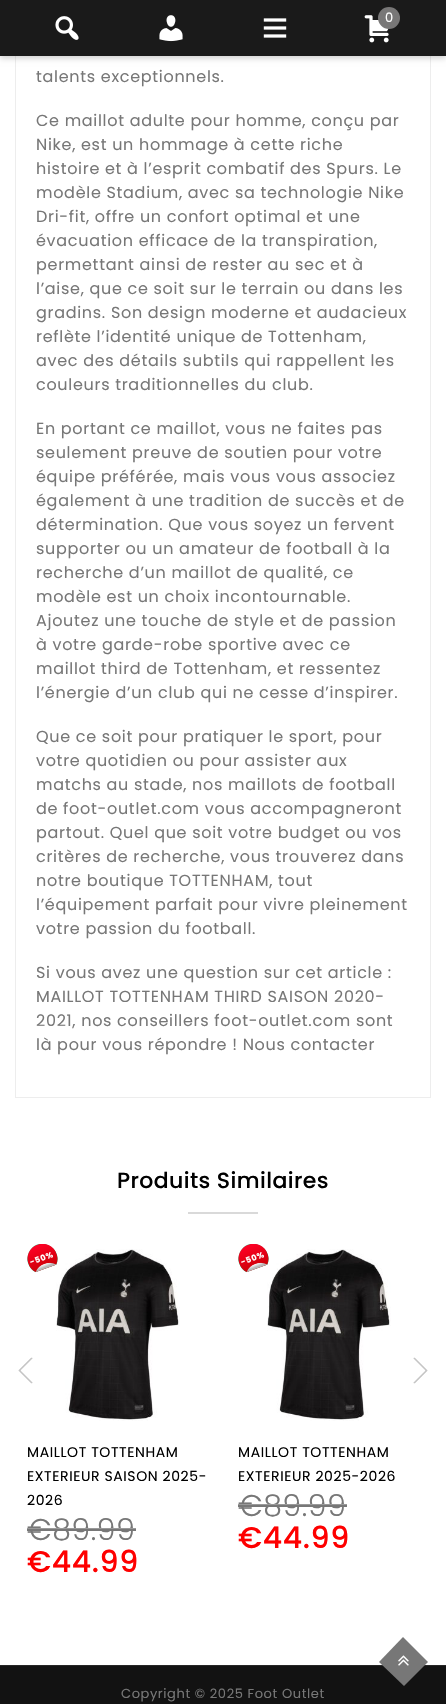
#include "include/core/SkBlurTypes.h"
#include "include/core/SkCanvas.h"
#include "include/core/SkData.h"
#include "include/core/SkFont.h"
#include "include/core/SkFontMgr.h"
#include "include/core/SkImage.h"
#include "include/core/SkMaskFilter.h"
#include "include/core/SkPaint.h"
#include "include/core/SkPathBuilder.h"
#include "include/core/SkTextBlob.h"
#include "include/effects/SkDashPathEffect.h"
#include "include/effects/SkGradientShader.h"
#include "include/utils/SkParsePath.h"

extern sk_sp<SkFontMgr> fontMgr;

void draw(SkCanvas* canvas) {
    SkPaint p;
    p.setAntiAlias(true);
    auto font = [&](const char* family, int weight, float size, bool italic = false) {
        SkFontStyle style(weight, SkFontStyle::kNormal_Width,
            italic ? SkFontStyle::kItalic_Slant : SkFontStyle::kUpright_Slant);
        SkFont result(fontMgr->matchFamilyStyle(family, style), size);
        result.setSubpixel(true);
        return result;
    };
    auto drawTracked = [&](const char* s, float x, float y, const SkFont& font, const SkPaint& ink, float letter, float word) {
        std::vector<SkGlyphID> glyphs(font.countText(s, strlen(s), SkTextEncoding::kUTF8));
        std::vector<float> xs(glyphs.size());
        font.textToGlyphs(s, strlen(s), SkTextEncoding::kUTF8, glyphs);
        font.getXPos(glyphs, xs, x);
        float extra = 0;
        for (size_t i = 0; i < glyphs.size(); i++) {
            xs[i] += extra;
            extra += letter + word * (glyphs[i] == font.unicharToGlyph(' '));
        }
        canvas->drawTextBlob(SkTextBlob::MakeFromPosHGlyphs(glyphs, xs, y, font), 0, 0, ink);
    };
    auto drawPhoto = [&](const char* path, float l, float t, float r, float b) {
        auto image = SkImages::DeferredFromEncodedData(SkData::MakeFromFileName(path));
        canvas->drawImageRect(image, SkRect::MakeLTRB(l, t, r, b), SkSamplingOptions());
    };
    canvas->clear(0xFFFFFFFF);
    p.setStyle(SkPaint::kStroke_Style);
    p.setStrokeWidth(1);
    p.setColor(0xFFEDEDED);
    canvas->drawRect(SkRect::MakeLTRB(15.5f, -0.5f, 430.5f, 1097.5f), p);
    p.setStyle(SkPaint::kFill_Style);
    p.setColor(0x33000000);
    p.setMaskFilter(SkMaskFilter::MakeBlur(kNormal_SkBlurStyle, 3));
    canvas->drawRect(SkRect::MakeLTRB(0, 2, 446, 58), p);
    p.setMaskFilter(nullptr);
    p.setColor(0xFF1A1A1A);
    canvas->drawRect(SkRect::MakeLTRB(0, 0, 446, 56), p);
    drawPhoto("media/1.png", 55, 16, 79, 40);
    drawPhoto("media/2.png", 159, 15, 183, 42);
    drawPhoto("media/3.png", 263, 18, 287, 38);
    drawPhoto("media/4.png", 364, 15, 389, 43);
    p.setColor(0xFF787777);
    canvas->drawCircle(389, 18, 11, p);
    auto font1 = font("Poppins", 400, 13);
    p.setColor(0xFFFFFFFF);
    drawTracked("0", 385, 22, font1, p, 0.7f, 0);
    auto font2 = font("Poppins", 400, 16);
    p.setColor(0xFF777777);
    {
        const struct { const char* s; float x, y; } items[] = {
            {"talents exceptionnels.", 36, 82},
            {"Ce maillot adulte pour homme, conçu par", 36, 126},
            {"Nike, est un hommage à cette riche", 36, 150},
            {"histoire et à l’esprit combatif des Spurs. Le", 36, 174},
            {"modèle Stadium, avec sa technologie Nike", 36, 198},
            {"Dri-fit, offre un confort optimal et une", 36, 222},
            {"évacuation efficace de la transpiration,", 36, 246},
            {"permettant ainsi de rester au sec et à", 36, 270},
            {"l’aise, que ce soit sur le terrain ou dans les", 36, 294},
            {"gradins. Son design moderne et audacieux", 36, 318},
            {"reflète l’identité unique de Tottenham,", 36, 342},
            {"avec des détails subtils qui rappellent les", 36, 366},
            {"couleurs traditionnelles du club.", 36, 390},
            {"En portant ce maillot, vous ne faites pas", 36, 434},
            {"seulement preuve de soutien pour votre", 36, 458},
            {"équipe préférée, mais vous vous associez", 36, 482},
            {"également à une tradition de succès et de", 36, 506},
            {"détermination. Que vous soyez un fervent", 36, 530},
            {"supporter ou un amateur de football à la", 36, 554},
            {"recherche d’un maillot de qualité, ce", 36, 578},
            {"modèle est un choix incontournable.", 36, 602},
            {"Ajoutez une touche de style et de passion", 36, 626},
            {"à votre garde-robe sportive avec ce", 36, 650},
            {"maillot third de Tottenham, et ressentez", 36, 674},
            {"l’énergie d’un club qui ne cesse d’inspirer.", 36, 698},
            {"Que ce soit pour pratiquer le sport, pour", 36, 742},
            {"votre quotidien ou pour assister aux", 36, 766},
            {"matchs au stade, nos maillots de football", 36, 790},
            {"de foot-outlet.com vous accompagneront", 36, 814},
            {"partout. Quel que soit votre budget ou vos", 36, 838},
            {"critères de recherche, vous trouverez dans", 36, 862},
            {"notre boutique TOTTENHAM, tout", 36, 886},
            {"l’équipement parfait pour vivre pleinement", 36, 910},
            {"votre passion du football.", 36, 934},
            {"Si vous avez une question sur cet article :", 36, 978},
            {"MAILLOT TOTTENHAM THIRD SAISON 2020-", 36, 1002},
            {"2021, nos conseillers foot-outlet.com sont", 36, 1026},
            {"là pour vous répondre ! Nous contacter", 36, 1050},
        };
        for (auto [s, x, y] : items) {
            drawTracked(s, x, y, font2, p, 0.7f, 0);
        }
    }
    auto font3 = font("Poppins", 500, 22);
    p.setColor(0xFF000000);
    drawTracked("Produits Similaires", 117, 1188, font3, p, 0.4f, 0);
    p.setColor(0xFFD9D9D9);
    canvas->drawRect(SkRect::MakeLTRB(188, 1212, 258, 1214), p);
    drawPhoto("media/7.png", 56, 1249, 180, 1421);
    canvas->save();
    canvas->clipRect(SkRect::MakeLTRB(27, 1244, 208, 1425));
    p.setColor(0xFF17BF80);
    canvas->drawPath(SkPathBuilder().moveTo(56.5f, 1264.5f).lineTo(35.5f, 1272).cubicTo(31.5f, 1270, 28.5f, 1266, 27.5f, 1261).cubicTo(27, 1257.5f, 28, 1253.5f, 30, 1250.5f).cubicTo(39.5f, 1235.5f, 63, 1248, 56.5f, 1264.5f).close().detach(), p);
    canvas->restore();
    drawPhoto("media/5.png", 27, 1244, 58, 1272);
    drawPhoto("media/6.png", 35, 1262, 56, 1273);
    auto font4 = font("Poppins", 700, 8);
    p.setColor(0xFFFFFFFF);
    canvas->save();
    canvas->rotate(-20, 31, 1265);
    drawTracked("-50%", 31, 1265, font4, p, 0.7f, 0);
    canvas->restore();
    auto font5 = font("Poppins", 400, 14);
    p.setColor(0xFF000000);
    {
        const struct { const char* s; float x, y; } items[] = {
            {"MAILLOT TOTTENHAM", 27, 1457},
            {"EXTERIEUR SAISON 2025-", 27, 1481},
            {"2026", 27, 1505},
        };
        for (auto [s, x, y] : items) {
            drawTracked(s, x, y, font5, p, 0.6f, 0);
        }
    }
    auto font6 = font("Poppins", 300, 30);
    p.setColor(0xFF777777);
    drawTracked("€89.99", 27, 1540, font6, p, 0.6f, 0);
    canvas->drawRect(SkRect::MakeLTRB(27, 1529, 136, 1531), p);
    p.setColor(0xFF999999);
    canvas->drawRect(SkRect::MakeLTRB(27, 1528, 136, 1529), p);
    auto font7 = font("Poppins", 500, 30);
    p.setColor(0xFFFE0000);
    drawTracked("€44.99", 27, 1572, font7, p, 0.6f, 0);
    drawPhoto("media/8.png", 267, 1249, 391, 1421);
    canvas->save();
    canvas->clipRect(SkRect::MakeLTRB(238, 1244, 419, 1425));
    p.setColor(0xFF17BF80);
    canvas->drawPath(SkPathBuilder().moveTo(267.5f, 1264.5f).lineTo(246.5f, 1272).cubicTo(242.5f, 1270, 239.5f, 1266, 238.5f, 1261).cubicTo(238, 1257.5f, 239, 1253.5f, 241, 1250.5f).cubicTo(250.5f, 1235.5f, 274, 1248, 267.5f, 1264.5f).close().detach(), p);
    canvas->restore();
    drawPhoto("media/5.png", 238, 1244, 269, 1272);
    drawPhoto("media/6.png", 246, 1262, 267, 1273);
    p.setColor(0xFFFFFFFF);
    canvas->save();
    canvas->rotate(-20, 242, 1265);
    drawTracked("-50%", 242, 1265, font4, p, 0.7f, 0);
    canvas->restore();
    p.setColor(0xFF000000);
    drawTracked("MAILLOT TOTTENHAM", 238, 1457, font5, p, 0.6f, 0);
    drawTracked("EXTERIEUR 2025-2026", 238, 1481, font5, p, 0.6f, 0);
    p.setColor(0xFF777777);
    drawTracked("€89.99", 238, 1516, font6, p, 0.6f, 0);
    canvas->drawRect(SkRect::MakeLTRB(238, 1505, 347, 1507), p);
    p.setColor(0xFF999999);
    canvas->drawRect(SkRect::MakeLTRB(238, 1504, 347, 1505), p);
    p.setColor(0xFFFE0000);
    drawTracked("€44.99", 238, 1548, font7, p, 0.6f, 0);
    drawPhoto("media/9.png", 18, 1357, 33, 1384);
    drawPhoto("media/10.png", 413, 1357, 428, 1384);
    p.setColor(0xFF121212);
    canvas->drawRect(SkRect::MakeLTRB(0, 1666, 446, 1704), p);
    p.setColor(0xFF262626);
    canvas->drawRect(SkRect::MakeLTRB(0, 1665, 446, 1666), p);
    p.setColor(0xFF777777);
    drawTracked("Copyright © 2025 Foot Outlet", 121, 1698, font1, p, 0.6f, 0);
    canvas->drawPath(SkPathBuilder().moveTo(403, 1637).lineTo(428, 1662).lineTo(404, 1686).lineTo(379, 1662).close().detach(), p);
    drawPhoto("media/11.png", 398, 1655, 409, 1666);
}
